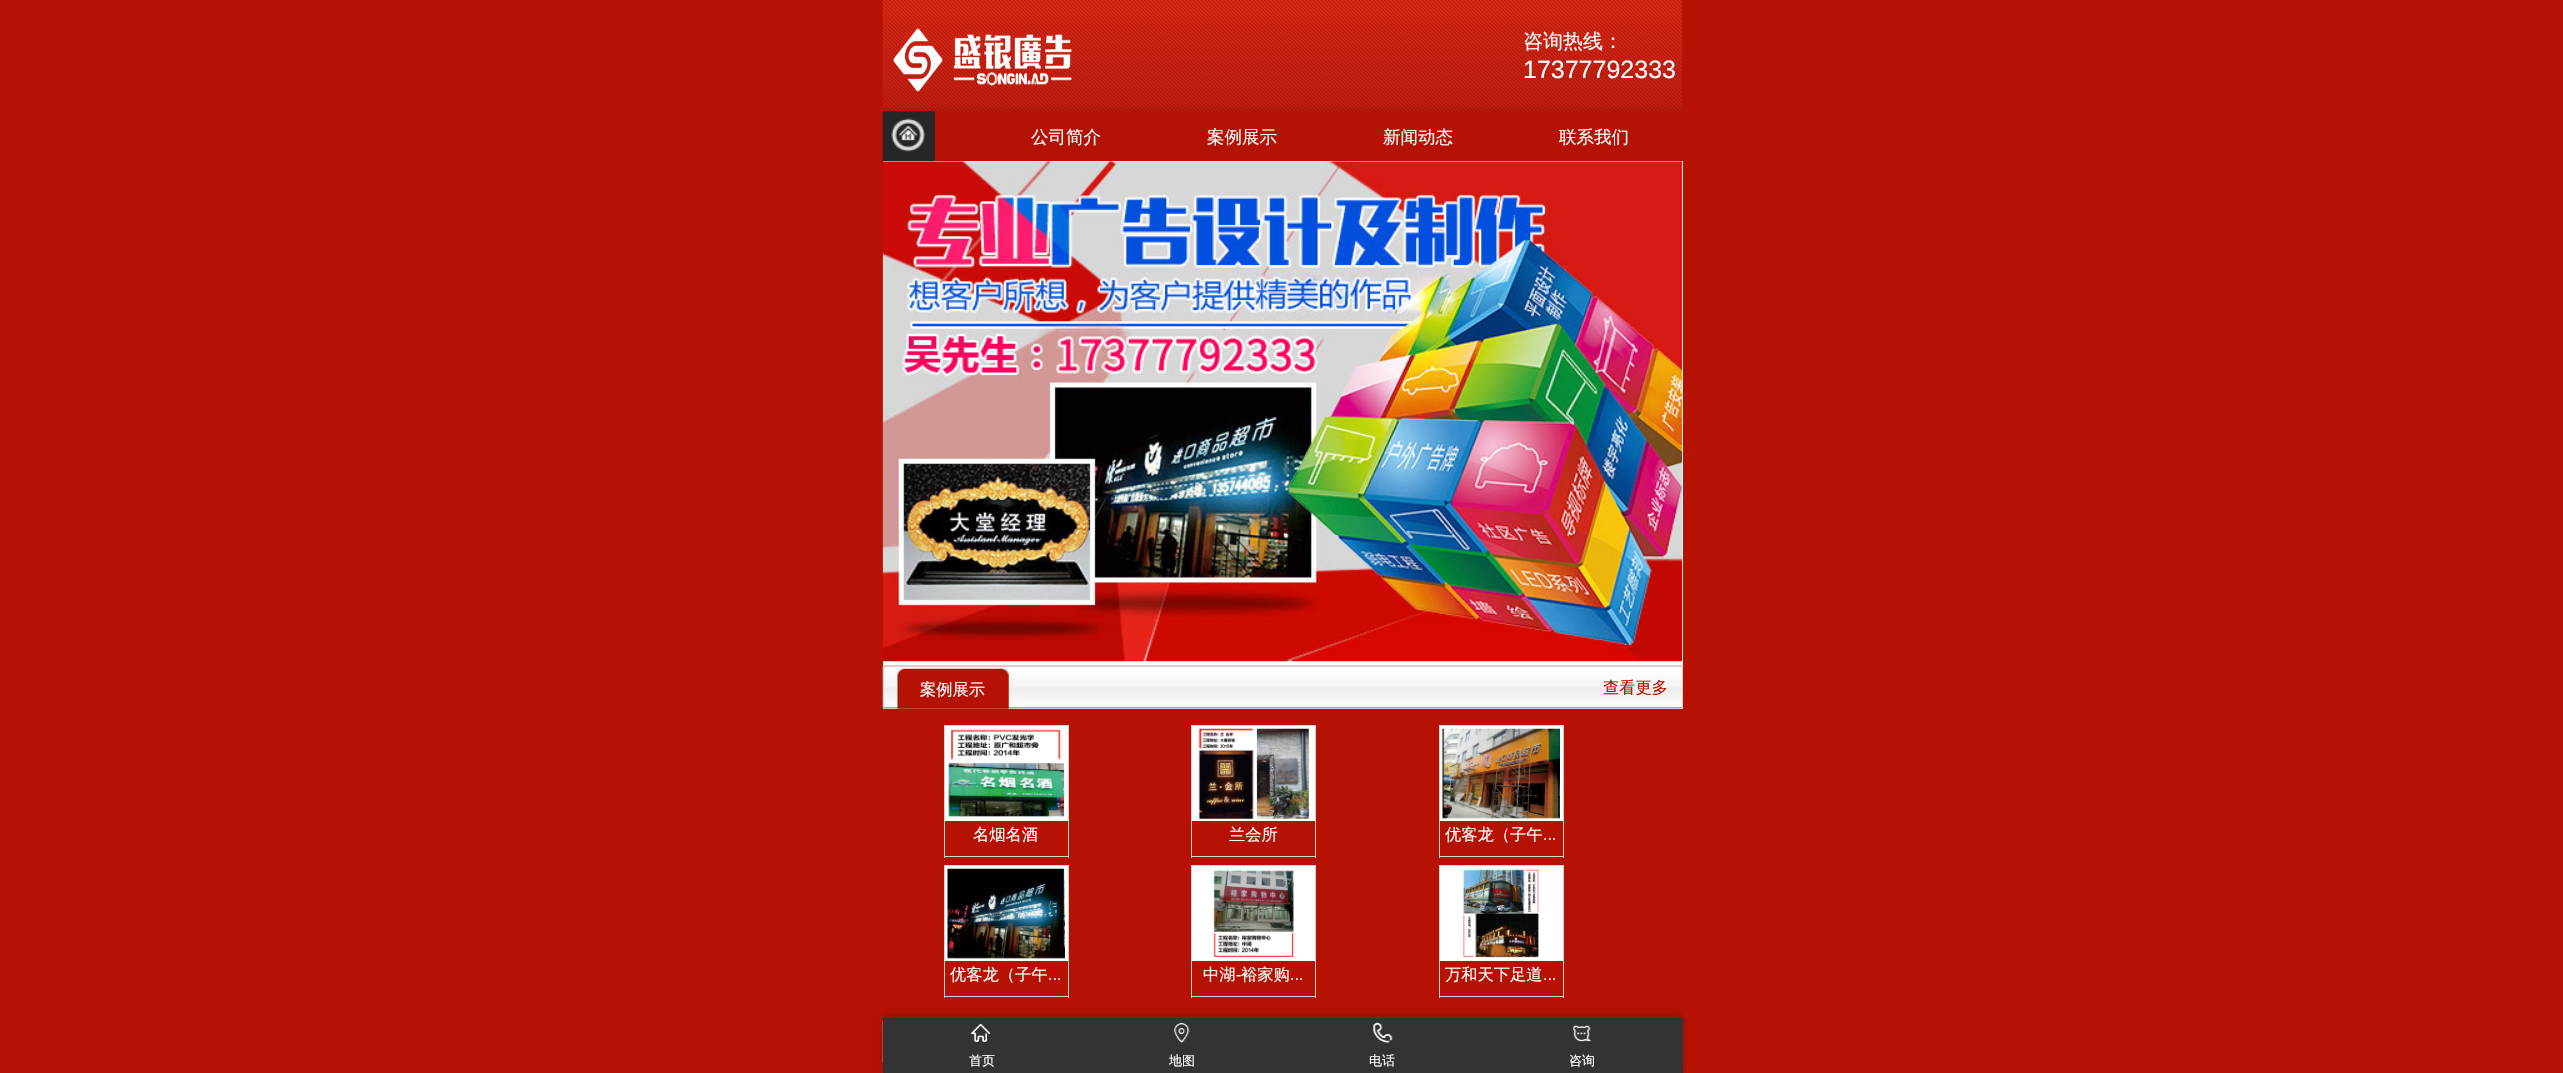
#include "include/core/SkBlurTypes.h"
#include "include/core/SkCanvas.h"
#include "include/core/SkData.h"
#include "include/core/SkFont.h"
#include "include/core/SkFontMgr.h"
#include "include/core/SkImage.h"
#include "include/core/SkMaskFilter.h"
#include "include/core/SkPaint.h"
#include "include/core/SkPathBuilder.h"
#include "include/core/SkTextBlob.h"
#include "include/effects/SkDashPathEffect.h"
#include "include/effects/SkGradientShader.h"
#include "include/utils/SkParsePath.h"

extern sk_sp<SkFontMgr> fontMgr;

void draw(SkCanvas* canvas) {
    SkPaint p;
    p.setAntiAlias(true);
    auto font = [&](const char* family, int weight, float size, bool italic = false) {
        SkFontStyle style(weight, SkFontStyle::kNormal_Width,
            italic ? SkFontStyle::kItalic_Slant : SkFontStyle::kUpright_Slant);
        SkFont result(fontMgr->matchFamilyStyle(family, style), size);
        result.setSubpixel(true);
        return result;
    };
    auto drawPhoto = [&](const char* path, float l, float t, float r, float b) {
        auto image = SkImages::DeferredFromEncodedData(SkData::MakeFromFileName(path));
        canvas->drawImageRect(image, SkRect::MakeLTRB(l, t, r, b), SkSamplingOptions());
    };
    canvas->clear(0xFFB51204);
    drawPhoto("media/1.png", 882, 0, 1683, 112);
    drawPhoto("media/2.png", 893, 28, 1072, 92);
    auto font1 = font("WenQuanYi Zen Hei", 500, 20);
    p.setColor(0xFFFFFFFF);
    canvas->drawString("咨询热线：", 1523, 48, font1, p);
    auto font2 = font("Liberation Sans", 400, 25);
    canvas->drawString("17377792333", 1523, 78, font2, p);
    drawPhoto("media/3.png", 882, 111, 935, 162);
    auto font3 = font("WenQuanYi Zen Hei", 500, 17.5f);
    {
        const struct { const char* s; float x, y; } items[] = {
            {"公司简介", 1031, 143},
            {"案例展示", 1207, 143},
            {"新闻动态", 1383, 143},
            {"联系我们", 1559, 143},
        };
        for (auto [s, x, y] : items) {
            canvas->drawString(s, x, y, font3, p);
        }
    }
    canvas->drawRect(SkRect::MakeLTRB(883, 161, 1683, 665), p);
    drawPhoto("media/4.png", 882, 161, 1683, 662);
    drawPhoto("media/5.png", 882, 666, 1682, 708);
    p.setStyle(SkPaint::kStroke_Style);
    p.setStrokeWidth(1);
    p.setColor(0xFFD2D2D2);
    canvas->drawRect(SkRect::MakeLTRB(883.5f, 665.5f, 1682.5f, 708.5f), p);
    drawPhoto("media/6.png", 897, 668, 1009, 709);
    auto font4 = font("WenQuanYi Zen Hei", 500, 16.25f);
    p.setStyle(SkPaint::kFill_Style);
    p.setColor(0xFFFFFFFF);
    canvas->drawString("案例展示", 920, 695, font4, p);
    p.setColor(0xFFB51204);
    canvas->drawString("查看更多", 1603, 693, font4, p);
    {
        const struct { float l, t, r, b; SkColor color; } items[] = {
            {945, 726, 1068, 821, 0xFFFFFFFF},
            {944, 725, 1069, 726, 0xFFD2D2D2},
            {1068, 725, 1069, 858, 0xFFD2D2D2},
            {944, 725, 945, 821, 0xFFD2D2D2},
        };
        for (auto [l, t, r, b, color] : items) {
            p.setColor(color);
            canvas->drawRect(SkRect::MakeLTRB(l, t, r, b), p);
        }
    }
    drawPhoto("media/7.png", 948, 729, 1065, 817);
    canvas->drawRect(SkRect::MakeLTRB(944, 856, 1069, 857), p);
    canvas->drawRect(SkRect::MakeLTRB(944, 821, 945, 858), p);
    p.setColor(0xFFFFFFFF);
    canvas->drawString("名烟名酒", 973, 840, font4, p);
    {
        const struct { float l, t, r, b; SkColor color; } items[] = {
            {1192, 726, 1315, 821, 0xFFFFFFFF},
            {1191, 725, 1316, 726, 0xFFD2D2D2},
            {1315, 725, 1316, 858, 0xFFD2D2D2},
            {1191, 725, 1192, 821, 0xFFD2D2D2},
        };
        for (auto [l, t, r, b, color] : items) {
            p.setColor(color);
            canvas->drawRect(SkRect::MakeLTRB(l, t, r, b), p);
        }
    }
    drawPhoto("media/8.png", 1198, 728, 1310, 819);
    canvas->drawRect(SkRect::MakeLTRB(1191, 856, 1316, 857), p);
    canvas->drawRect(SkRect::MakeLTRB(1191, 821, 1192, 858), p);
    p.setColor(0xFFFFFFFF);
    canvas->drawString("兰会所", 1229, 840, font4, p);
    {
        const struct { float l, t, r, b; SkColor color; } items[] = {
            {1440, 726, 1563, 821, 0xFFFFFFFF},
            {1439, 725, 1564, 726, 0xFFD2D2D2},
            {1563, 725, 1564, 858, 0xFFD2D2D2},
            {1439, 725, 1440, 821, 0xFFD2D2D2},
        };
        for (auto [l, t, r, b, color] : items) {
            p.setColor(color);
            canvas->drawRect(SkRect::MakeLTRB(l, t, r, b), p);
        }
    }
    drawPhoto("media/9.png", 1442, 728, 1560, 819);
    canvas->drawRect(SkRect::MakeLTRB(1439, 856, 1564, 857), p);
    canvas->drawRect(SkRect::MakeLTRB(1439, 821, 1440, 858), p);
    p.setColor(0xFFFFFFFF);
    canvas->drawString("优客龙（子午", 1445, 840, font4, p);
    auto font5 = font("Liberation Sans", 400, 16.25f);
    canvas->drawString("...", 1543, 840, font5, p);
    {
        const struct { float l, t, r, b; SkColor color; } items[] = {
            {945, 866, 1068, 961, 0xFFFFFFFF},
            {944, 865, 1069, 866, 0xFFD2D2D2},
            {1068, 865, 1069, 998, 0xFFD2D2D2},
            {944, 865, 945, 961, 0xFFD2D2D2},
        };
        for (auto [l, t, r, b, color] : items) {
            p.setColor(color);
            canvas->drawRect(SkRect::MakeLTRB(l, t, r, b), p);
        }
    }
    drawPhoto("media/10.png", 947, 868, 1065, 959);
    canvas->drawRect(SkRect::MakeLTRB(944, 996, 1069, 997), p);
    canvas->drawRect(SkRect::MakeLTRB(944, 961, 945, 998), p);
    p.setColor(0xFFFFFFFF);
    canvas->drawString("优客龙（子午", 950, 980, font4, p);
    canvas->drawString("...", 1048, 980, font5, p);
    {
        const struct { float l, t, r, b; SkColor color; } items[] = {
            {1192, 866, 1315, 961, 0xFFFFFFFF},
            {1191, 865, 1316, 866, 0xFFD2D2D2},
            {1315, 865, 1316, 998, 0xFFD2D2D2},
            {1191, 865, 1192, 961, 0xFFD2D2D2},
        };
        for (auto [l, t, r, b, color] : items) {
            p.setColor(color);
            canvas->drawRect(SkRect::MakeLTRB(l, t, r, b), p);
        }
    }
    drawPhoto("media/11.png", 1213, 870, 1294, 957);
    canvas->drawRect(SkRect::MakeLTRB(1191, 996, 1316, 997), p);
    canvas->drawRect(SkRect::MakeLTRB(1191, 961, 1192, 998), p);
    p.setColor(0xFFFFFFFF);
    canvas->drawString("中湖", 1203, 980, font4, p);
    canvas->drawString("-", 1236, 980, font5, p);
    canvas->drawString("裕家购", 1241, 980, font4, p);
    canvas->drawString("...", 1290, 980, font5, p);
    {
        const struct { float l, t, r, b; SkColor color; } items[] = {
            {1440, 866, 1563, 961, 0xFFFFFFFF},
            {1439, 865, 1564, 866, 0xFFD2D2D2},
            {1563, 865, 1564, 998, 0xFFD2D2D2},
            {1439, 865, 1440, 961, 0xFFD2D2D2},
        };
        for (auto [l, t, r, b, color] : items) {
            p.setColor(color);
            canvas->drawRect(SkRect::MakeLTRB(l, t, r, b), p);
        }
    }
    drawPhoto("media/12.png", 1463, 869, 1540, 958);
    canvas->drawRect(SkRect::MakeLTRB(1439, 996, 1564, 997), p);
    canvas->drawRect(SkRect::MakeLTRB(1439, 961, 1440, 998), p);
    p.setColor(0xFFFFFFFF);
    canvas->drawString("万和天下足道", 1445, 980, font4, p);
    canvas->drawString("...", 1543, 980, font5, p);
    drawPhoto("media/13.png", 882, 1021, 883, 1063);
    p.setColor(0x33000000);
    p.setMaskFilter(SkMaskFilter::MakeBlur(kNormal_SkBlurStyle, 3));
    canvas->drawRect(SkRect::MakeLTRB(883, 1015, 1683, 1071), p);
    p.setMaskFilter(nullptr);
    p.setColor(0xFF333333);
    canvas->drawRect(SkRect::MakeLTRB(883, 1018, 1683, 1073), p);
    drawPhoto("media/14.png", 971, 1023, 990, 1042);
    auto font6 = font("WenQuanYi Zen Hei", 500, 13);
    p.setColor(0xFFFFFFFF);
    canvas->drawString("首页", 969, 1065, font6, p);
    drawPhoto("media/15.png", 1174, 1023, 1190, 1043);
    canvas->drawString("地图", 1169, 1065, font6, p);
    drawPhoto("media/16.png", 1373, 1022, 1393, 1043);
    canvas->drawString("电话", 1369, 1065, font6, p);
    drawPhoto("media/17.png", 1573, 1025, 1592, 1042);
    canvas->drawString("咨询", 1569, 1065, font6, p);
}
